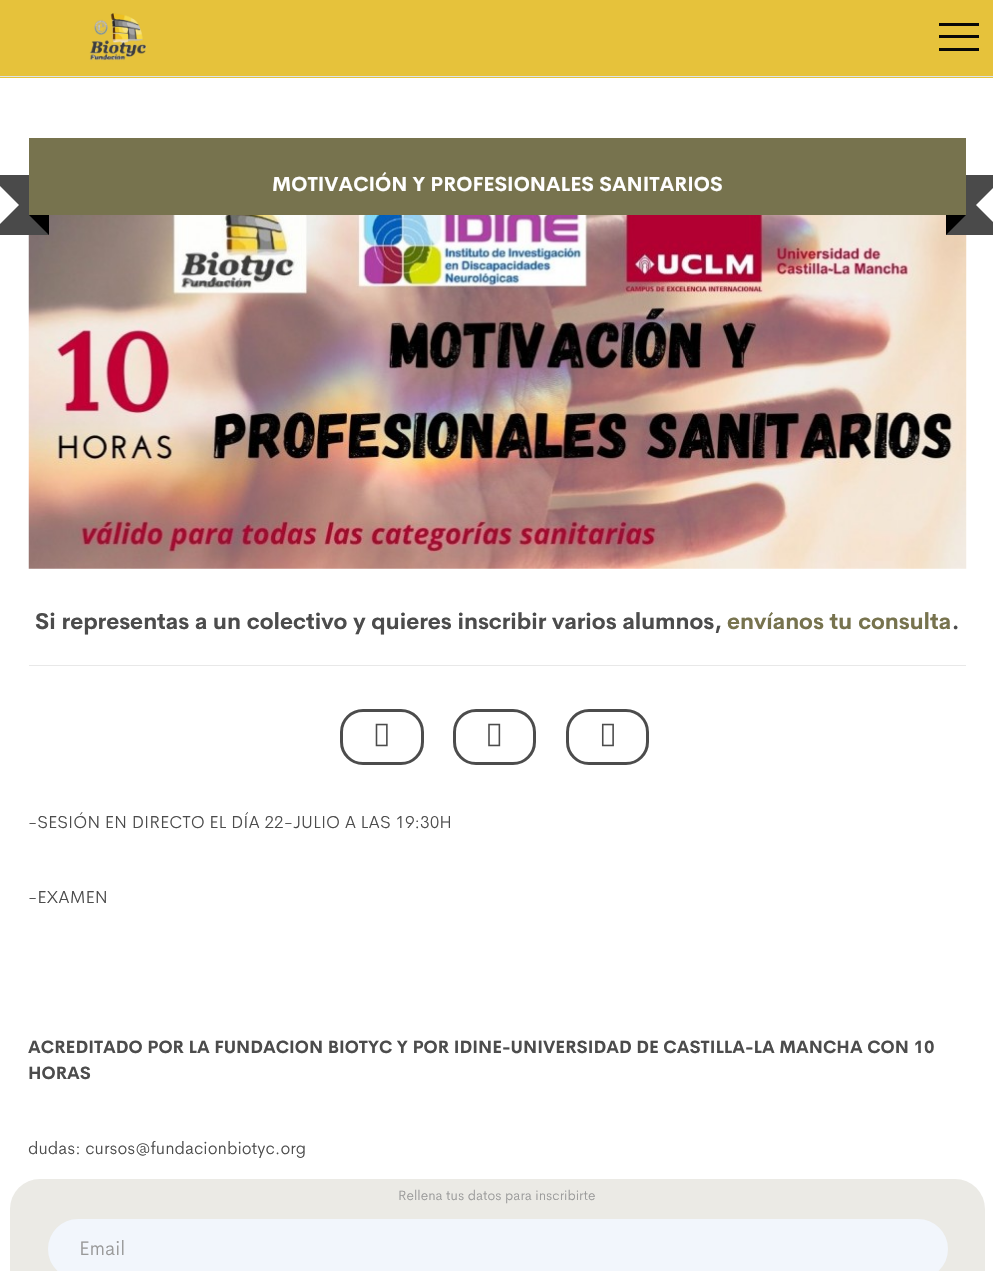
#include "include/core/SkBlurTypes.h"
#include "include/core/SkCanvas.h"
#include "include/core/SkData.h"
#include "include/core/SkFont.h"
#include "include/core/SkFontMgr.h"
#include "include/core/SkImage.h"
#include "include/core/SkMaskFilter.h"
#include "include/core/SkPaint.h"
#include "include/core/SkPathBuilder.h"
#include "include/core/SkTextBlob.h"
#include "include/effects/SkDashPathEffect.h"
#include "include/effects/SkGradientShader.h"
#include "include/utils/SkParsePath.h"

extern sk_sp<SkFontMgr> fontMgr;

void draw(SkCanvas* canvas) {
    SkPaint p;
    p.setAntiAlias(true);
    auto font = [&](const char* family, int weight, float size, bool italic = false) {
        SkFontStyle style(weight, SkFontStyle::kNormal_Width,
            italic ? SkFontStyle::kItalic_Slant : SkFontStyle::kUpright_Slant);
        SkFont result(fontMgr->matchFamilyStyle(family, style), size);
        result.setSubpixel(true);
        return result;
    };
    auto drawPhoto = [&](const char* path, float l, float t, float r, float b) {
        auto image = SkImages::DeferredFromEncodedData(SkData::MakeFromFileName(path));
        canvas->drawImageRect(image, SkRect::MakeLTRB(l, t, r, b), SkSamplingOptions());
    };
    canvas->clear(0xFFFFFFFF);
    {
        const struct { float l, t, r, b; SkColor color; } items[] = {
            {0, 0, 993, 78, 0xFFE6C23B},
            {939, 35, 979, 38, 0xFF080807},
            {939, 23, 979, 26, 0xFF080807},
            {939, 48, 979, 51, 0xFF080807},
            {0, 76, 993, 77, 0xFFDCE4EC},
        };
        for (auto [l, t, r, b, color] : items) {
            p.setColor(color);
            canvas->drawRect(SkRect::MakeLTRB(l, t, r, b), p);
        }
    }
    drawPhoto("media/1.png", 89, 12, 147, 61);
    p.setColor(0xFF4A4A4A);
    canvas->drawPath(SkPathBuilder().moveTo(-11, 175).lineTo(49, 175).lineTo(19, 205).close().detach(), p);
    drawPhoto("media/2.png", 28, 215, 967, 569);
    canvas->drawRect(SkRect::MakeLTRB(19, 175, 49, 235), p);
    canvas->drawPath(SkPathBuilder().moveTo(49, 235).lineTo(-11, 235).lineTo(19, 205).close().detach(), p);
    canvas->drawPath(SkPathBuilder().moveTo(946, 175).lineTo(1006, 175).lineTo(976, 205).close().moveTo(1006, 235).lineTo(946, 235).lineTo(976, 205).close().detach(), p);
    canvas->drawRect(SkRect::MakeLTRB(946, 175, 976, 235), p);
    p.setColor(0xFF77734E);
    canvas->drawRect(SkRect::MakeLTRB(29, 138, 966, 215), p);
    auto font1 = font("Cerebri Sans", 700, 20);
    p.setColor(0xFFFFFFFF);
    canvas->drawString("MOTIVACIÓN Y PROFESIONALES SANITARIOS", 272, 191, font1, p);
    p.setColor(0xFF000000);
    canvas->drawPath(SkPathBuilder().moveTo(29, 215).lineTo(49, 215).lineTo(49, 235).close().detach(), p);
    canvas->drawPath(SkPathBuilder().moveTo(946, 215).lineTo(966, 215).lineTo(946, 235).close().detach(), p);
    auto font2 = font("Cerebri Sans", 700, 22.5f);
    p.setColor(0xFF4C4C4C);
    canvas->drawString("Si representas a un colectivo y quieres inscribir varios alumnos,", 35, 629, font2, p);
    p.setColor(0xFF77734E);
    canvas->drawString("envíanos tu consulta", 727, 629, font2, p);
    p.setColor(0xFF4C4C4C);
    canvas->drawString(".", 952, 629, font2, p);
    p.setColor(0xFFE8E8E8);
    canvas->drawRect(SkRect::MakeLTRB(29, 665, 966, 666), p);
    p.setStyle(SkPaint::kStroke_Style);
    p.setStrokeWidth(3);
    p.setColor(0xFF4C4C4C);
    canvas->drawRoundRect(SkRect::MakeLTRB(341.5f, 710.5f, 422.5f, 763.5f), 21.5f, 21.5f, p);
    drawPhoto("media/3.png", 375, 723, 388, 747);
    canvas->drawRoundRect(SkRect::MakeLTRB(454.5f, 710.5f, 534.5f, 763.5f), 21.5f, 21.5f, p);
    drawPhoto("media/4.png", 488, 723, 501, 747);
    canvas->drawRoundRect(SkRect::MakeLTRB(567.5f, 710.5f, 647.5f, 763.5f), 21.5f, 21.5f, p);
    drawPhoto("media/5.png", 601, 723, 614, 747);
    auto font3 = font("Cerebri Sans", 300, 17.5f);
    p.setStyle(SkPaint::kFill_Style);
    canvas->drawString("-SESIÓN EN DIRECTO EL DÍA 22-JULIO A LAS 19:30H", 28, 828, font3, p);
    canvas->drawString("-EXAMEN", 28, 903, font3, p);
    auto font4 = font("Cerebri Sans", 700, 17.5f);
    canvas->drawString("ACREDITADO POR LA FUNDACION BIOTYC Y POR IDINE-UNIVERSIDAD DE CASTILLA-LA MANCHA CON 10", 28, 1053, font4, p);
    canvas->drawString("HORAS", 28, 1079, font4, p);
    canvas->drawString("dudas: cursos@fundacionbiotyc.org", 28, 1154, font3, p);
    p.setColor(0xFFEBEAE5);
    canvas->drawRoundRect(SkRect::MakeLTRB(10, 1179, 985, 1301), 30, 30, p);
    auto font5 = font("Cerebri Sans", 300, 13.75f);
    p.setColor(0xFF999999);
    canvas->drawString("Rellena tus datos para inscribirte", 398, 1200, font5, p);
    p.setColor(0xFFF2F6FC);
    canvas->drawRoundRect(SkRect::MakeLTRB(49.5f, 1220.5f, 946.5f, 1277.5f), 28.5f, 28.5f, p);
    p.setStyle(SkPaint::kStroke_Style);
    canvas->drawRoundRect(SkRect::MakeLTRB(49.5f, 1220.5f, 946.5f, 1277.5f), 28.5f, 28.5f, p);
    auto font6 = font("Cerebri Sans", 300, 20);
    p.setStyle(SkPaint::kFill_Style);
    p.setColor(0xFF999999);
    canvas->drawString("Email", 79, 1255, font6, p);
}
